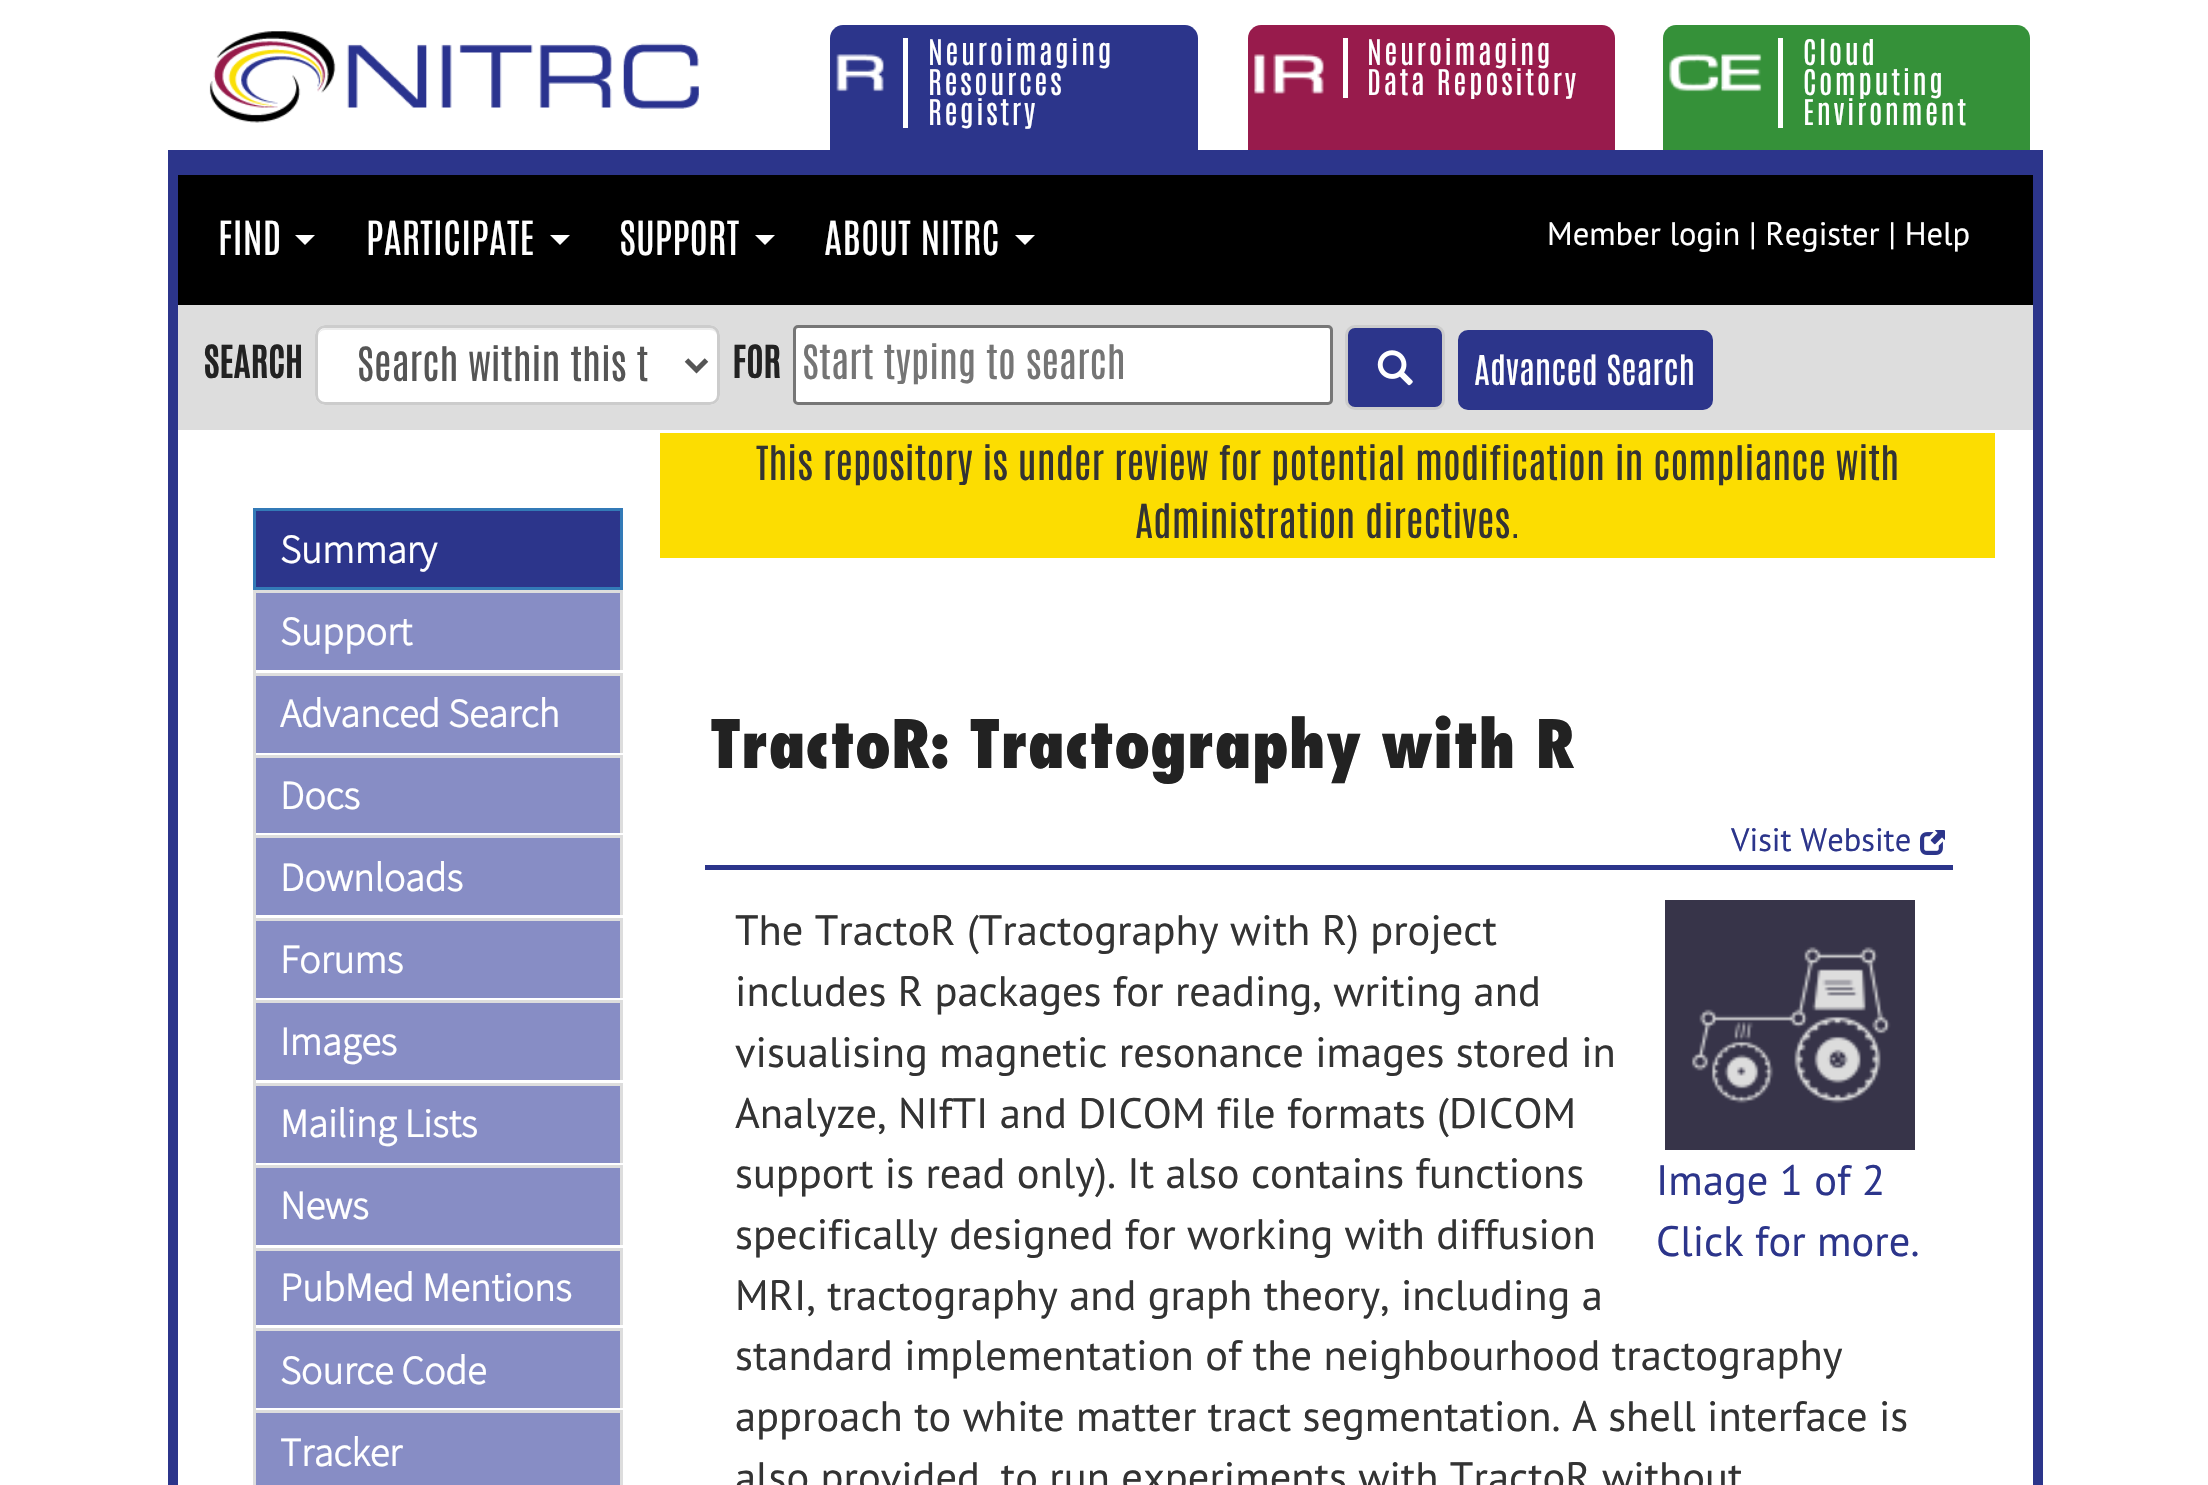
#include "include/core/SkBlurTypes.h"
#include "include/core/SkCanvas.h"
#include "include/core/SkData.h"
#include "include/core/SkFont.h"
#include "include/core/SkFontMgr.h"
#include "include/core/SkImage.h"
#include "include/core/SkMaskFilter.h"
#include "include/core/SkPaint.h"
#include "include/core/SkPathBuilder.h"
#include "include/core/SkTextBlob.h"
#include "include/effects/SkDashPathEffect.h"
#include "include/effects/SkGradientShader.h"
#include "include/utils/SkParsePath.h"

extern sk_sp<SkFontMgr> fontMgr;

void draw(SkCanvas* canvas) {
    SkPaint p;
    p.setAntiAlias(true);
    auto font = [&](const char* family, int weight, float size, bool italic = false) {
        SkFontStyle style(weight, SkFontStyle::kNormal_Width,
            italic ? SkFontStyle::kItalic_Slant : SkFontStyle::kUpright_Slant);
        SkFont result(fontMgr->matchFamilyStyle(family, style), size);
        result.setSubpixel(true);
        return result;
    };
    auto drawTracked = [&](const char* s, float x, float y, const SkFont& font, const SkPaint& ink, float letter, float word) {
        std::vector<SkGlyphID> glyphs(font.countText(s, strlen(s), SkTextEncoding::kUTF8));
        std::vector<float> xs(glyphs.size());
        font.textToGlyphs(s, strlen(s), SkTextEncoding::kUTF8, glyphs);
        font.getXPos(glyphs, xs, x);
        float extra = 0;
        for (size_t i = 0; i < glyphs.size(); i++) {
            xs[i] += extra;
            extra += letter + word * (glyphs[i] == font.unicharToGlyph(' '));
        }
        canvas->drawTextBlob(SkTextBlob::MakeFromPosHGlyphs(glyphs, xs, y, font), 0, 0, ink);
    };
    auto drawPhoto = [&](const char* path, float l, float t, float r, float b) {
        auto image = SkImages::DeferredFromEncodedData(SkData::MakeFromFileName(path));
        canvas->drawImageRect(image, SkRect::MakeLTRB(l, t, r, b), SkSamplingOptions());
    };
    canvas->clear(0xFFFFFFFF);
    drawPhoto("media/1.png", 209, 31, 699, 123);
    p.setColor(0xFF2C358B);
    canvas->drawPath(SkPathBuilder().moveTo(843, 25).lineTo(1185, 25).cubicTo(1192, 25, 1198, 31, 1198, 38).lineTo(1198, 150).lineTo(830, 150).lineTo(830, 38).cubicTo(830, 31, 836, 25, 843, 25).close().detach(), p);
    drawPhoto("media/2.png", 836, 54, 884, 92);
    p.setColor(0xFFFFFFFF);
    canvas->drawRect(SkRect::MakeLTRB(903, 38, 908, 128), p);
    auto font1 = font("Antonio", 400, 30);
    {
        const struct { const char* s; float x, y; } items[] = {
            {"Neuroimaging", 928, 65},
            {"Resources", 928, 95},
            {"Registry", 928, 125},
        };
        for (auto [s, x, y] : items) {
            drawTracked(s, x, y, font1, p, 2.5f, 0);
        }
    }
    p.setColor(0xFF981B4C);
    canvas->drawPath(SkPathBuilder().moveTo(1261, 25).lineTo(1602, 25).cubicTo(1609, 25, 1615, 31, 1615, 38).lineTo(1615, 150).lineTo(1248, 150).lineTo(1248, 38).cubicTo(1248, 31, 1254, 25, 1261, 25).close().detach(), p);
    drawPhoto("media/3.png", 1254, 54, 1324, 94);
    p.setColor(0xFFFFFFFF);
    canvas->drawRect(SkRect::MakeLTRB(1343, 38, 1348, 98), p);
    drawTracked("Neuroimaging", 1367, 65, font1, p, 2.5f, 0);
    drawTracked("Data Repository", 1367, 95, font1, p, 2.5f, 0);
    p.setColor(0xFF359139);
    canvas->drawPath(SkPathBuilder().moveTo(1676, 25).lineTo(2017, 25).cubicTo(2024, 25, 2030, 31, 2030, 38).lineTo(2030, 150).lineTo(1663, 150).lineTo(1663, 38).cubicTo(1663, 31, 1669, 25, 1676, 25).close().detach(), p);
    drawPhoto("media/4.png", 1669, 54, 1762, 92);
    p.setColor(0xFFFFFFFF);
    canvas->drawRect(SkRect::MakeLTRB(1778, 38, 1783, 128), p);
    {
        const struct { const char* s; float x, y; } items[] = {
            {"Cloud", 1803, 65},
            {"Computing", 1803, 95},
            {"Environment", 1803, 125},
        };
        for (auto [s, x, y] : items) {
            drawTracked(s, x, y, font1, p, 2.5f, 0);
        }
    }
    {
        const struct { float l, t, r, b; SkColor color; } items[] = {
            {178, 150, 2033, 175, 0xFF2C358B},
            {2033, 150, 2043, 1485, 0xFF2C358B},
            {168, 150, 178, 1485, 0xFF2C358B},
            {178, 175, 2033, 305, 0xFF000000},
        };
        for (auto [l, t, r, b, color] : items) {
            p.setColor(color);
            canvas->drawRect(SkRect::MakeLTRB(l, t, r, b), p);
        }
    }
    auto font2 = font("Antonio", 400, 40);
    p.setColor(0xFFFFFFFF);
    canvas->drawString("FIND", 218, 255, font2, p);
    canvas->drawPath(SkPathBuilder().moveTo(295, 235).lineTo(315, 235).lineTo(305, 245).close().detach(), p);
    canvas->drawString("PARTICIPATE", 366, 255, font2, p);
    canvas->drawPath(SkPathBuilder().moveTo(550, 235).lineTo(570, 235).lineTo(560, 245).close().detach(), p);
    canvas->drawString("SUPPORT", 619, 255, font2, p);
    canvas->drawPath(SkPathBuilder().moveTo(755, 235).lineTo(775, 235).lineTo(765, 245).close().detach(), p);
    canvas->drawString("ABOUT NITRC", 824, 255, font2, p);
    canvas->drawPath(SkPathBuilder().moveTo(1015, 235).lineTo(1035, 235).lineTo(1025, 245).close().detach(), p);
    auto font3 = font("PT Sans", 400, 32.5f);
    canvas->drawString("Member login | Register | Help", 1547, 245, font3, p);
    p.setColor(0xFFDDDDDD);
    canvas->drawRect(SkRect::MakeLTRB(178, 305, 2033, 430), p);
    auto font4 = font("Antonio", 700, 37.5f);
    p.setColor(0xFF222222);
    canvas->drawString("SEARCH", 203, 378, font4, p);
    p.setColor(0xFFFFFFFF);
    canvas->drawRoundRect(SkRect::MakeLTRB(315, 325, 720, 405), 10, 10, p);
    p.setColor(0xFFECECEC);
    canvas->drawPath(SkPathBuilder().moveTo(325, 330).lineTo(710, 330).cubicTo(714, 330, 718, 333, 718, 338).lineTo(718, 336).cubicTo(718, 332, 714, 328, 710, 328).lineTo(326, 328).cubicTo(322, 328, 318, 332, 318, 336).lineTo(318, 338).cubicTo(318, 333, 321, 330, 325, 330).close().detach(), p);
    p.setStyle(SkPaint::kStroke_Style);
    p.setStrokeWidth(3);
    p.setColor(0xFFCCCCCC);
    canvas->drawRoundRect(SkRect::MakeLTRB(316.5f, 326.5f, 718.5f, 403.5f), 8.5f, 8.5f, p);
    p.setStrokeWidth(5);
    p.setColor(0xFF555555);
    canvas->drawPath(SkPathBuilder().moveTo(686.5f, 360).lineTo(696.5f, 370).lineTo(706.5f, 360).detach(), p);
    p.setStyle(SkPaint::kFill_Style);
    canvas->drawString("Search within this t", 357, 381, font2, p);
    p.setColor(0xFF222222);
    canvas->drawString("FOR", 732, 378, font4, p);
    p.setColor(0xFFFFFFFF);
    canvas->drawRoundRect(SkRect::MakeLTRB(794.5f, 326.5f, 1331.5f, 403.5f), 3.5f, 3.5f, p);
    p.setStyle(SkPaint::kStroke_Style);
    p.setStrokeWidth(3);
    p.setColor(0xFF767676);
    canvas->drawRoundRect(SkRect::MakeLTRB(794.5f, 326.5f, 1331.5f, 403.5f), 3.5f, 3.5f, p);
    p.setStyle(SkPaint::kFill_Style);
    p.setColor(0xFF757575);
    canvas->drawString("Start typing to search", 802, 379, font2, p);
    p.setColor(0xFF2C358B);
    canvas->drawRoundRect(SkRect::MakeLTRB(1346.5f, 326.5f, 1443.5f, 408.5f), 8.5f, 8.5f, p);
    p.setStyle(SkPaint::kStroke_Style);
    p.setColor(0xFFCCCCCC);
    canvas->drawRoundRect(SkRect::MakeLTRB(1346.5f, 326.5f, 1443.5f, 408.5f), 8.5f, 8.5f, p);
    drawPhoto("media/5.png", 1377, 350, 1413, 386);
    p.setStyle(SkPaint::kFill_Style);
    p.setColor(0xFF2C358B);
    canvas->drawRoundRect(SkRect::MakeLTRB(1459.5f, 331.5f, 1711.5f, 408.5f), 8.5f, 8.5f, p);
    p.setStyle(SkPaint::kStroke_Style);
    canvas->drawRoundRect(SkRect::MakeLTRB(1459.5f, 331.5f, 1711.5f, 408.5f), 8.5f, 8.5f, p);
    auto font5 = font("Antonio", 400, 35);
    p.setStyle(SkPaint::kFill_Style);
    p.setColor(0xFFFFFFFF);
    canvas->drawString("Advanced Search", 1474, 385, font5, p);
    p.setColor(0xFFFCDD01);
    canvas->drawRect(SkRect::MakeLTRB(660, 433, 1995, 558), p);
    p.setColor(0xFF333333);
    canvas->drawString("This repository is under review for potential modification in compliance with", 756, 480, font2, p);
    canvas->drawString("Administration directives.", 1135, 538, font2, p);
    p.setColor(0xFF2C358B);
    canvas->drawRect(SkRect::MakeLTRB(254.5f, 509.5f, 621.5f, 588.5f), p);
    p.setStyle(SkPaint::kStroke_Style);
    p.setColor(0xFF337AB7);
    canvas->drawRect(SkRect::MakeLTRB(254.5f, 509.5f, 621.5f, 588.5f), p);
    auto font6 = font("Source Sans Pro", 700, 40);
    p.setStyle(SkPaint::kFill_Style);
    p.setColor(0xFFFFFFFF);
    canvas->drawString("Summary", 280, 563, font6, p);
    {
        const struct { float l, t, r, b; SkColor color; } items[] = {
            {256, 593, 620, 670, 0xFF878DC5},
            {253, 590, 623, 593, 0xFFDDDDDD},
            {620, 590, 623, 673, 0xFFDDDDDD},
            {620, 670, 623, 673, 0xFFFFFFFF},
            {253, 590, 256, 673, 0xFFDDDDDD},
        };
        for (auto [l, t, r, b, color] : items) {
            p.setColor(color);
            canvas->drawRect(SkRect::MakeLTRB(l, t, r, b), p);
        }
    }
    p.setColor(0xFFFFFFFF);
    canvas->drawString("Support", 280, 645, font6, p);
    {
        const struct { float l, t, r, b; SkColor color; } items[] = {
            {256, 676, 620, 753, 0xFF878DC5},
            {253, 673, 623, 676, 0xFFDDDDDD},
            {620, 673, 623, 755, 0xFFDDDDDD},
            {620, 753, 623, 755, 0xFFFFFFFF},
            {253, 673, 256, 755, 0xFFDDDDDD},
        };
        for (auto [l, t, r, b, color] : items) {
            p.setColor(color);
            canvas->drawRect(SkRect::MakeLTRB(l, t, r, b), p);
        }
    }
    p.setColor(0xFFFFFFFF);
    canvas->drawString("Advanced Search", 280, 727, font6, p);
    {
        const struct { float l, t, r, b; SkColor color; } items[] = {
            {256, 758, 620, 833, 0xFF878DC5},
            {253, 755, 623, 758, 0xFFDDDDDD},
            {620, 755, 623, 835, 0xFFDDDDDD},
            {620, 833, 623, 835, 0xFFFFFFFF},
            {253, 755, 256, 835, 0xFFDDDDDD},
        };
        for (auto [l, t, r, b, color] : items) {
            p.setColor(color);
            canvas->drawRect(SkRect::MakeLTRB(l, t, r, b), p);
        }
    }
    p.setColor(0xFFFFFFFF);
    canvas->drawString("Docs", 280, 809, font6, p);
    {
        const struct { float l, t, r, b; SkColor color; } items[] = {
            {256, 838, 620, 915, 0xFF878DC5},
            {253, 835, 623, 838, 0xFFDDDDDD},
            {620, 835, 623, 918, 0xFFDDDDDD},
            {620, 915, 623, 918, 0xFFFFFFFF},
            {253, 835, 256, 918, 0xFFDDDDDD},
        };
        for (auto [l, t, r, b, color] : items) {
            p.setColor(color);
            canvas->drawRect(SkRect::MakeLTRB(l, t, r, b), p);
        }
    }
    p.setColor(0xFFFFFFFF);
    canvas->drawString("Downloads", 280, 891, font6, p);
    {
        const struct { float l, t, r, b; SkColor color; } items[] = {
            {256, 921, 620, 998, 0xFF878DC5},
            {253, 918, 623, 921, 0xFFDDDDDD},
            {620, 918, 623, 1000, 0xFFDDDDDD},
            {620, 998, 623, 1000, 0xFFFFFFFF},
            {253, 918, 256, 1000, 0xFFDDDDDD},
        };
        for (auto [l, t, r, b, color] : items) {
            p.setColor(color);
            canvas->drawRect(SkRect::MakeLTRB(l, t, r, b), p);
        }
    }
    p.setColor(0xFFFFFFFF);
    canvas->drawString("Forums", 280, 973, font6, p);
    {
        const struct { float l, t, r, b; SkColor color; } items[] = {
            {256, 1003, 620, 1080, 0xFF878DC5},
            {253, 1000, 623, 1003, 0xFFDDDDDD},
            {620, 1000, 623, 1083, 0xFFDDDDDD},
            {620, 1080, 623, 1083, 0xFFFFFFFF},
            {253, 1000, 256, 1083, 0xFFDDDDDD},
        };
        for (auto [l, t, r, b, color] : items) {
            p.setColor(color);
            canvas->drawRect(SkRect::MakeLTRB(l, t, r, b), p);
        }
    }
    p.setColor(0xFFFFFFFF);
    canvas->drawString("Images", 280, 1055, font6, p);
    {
        const struct { float l, t, r, b; SkColor color; } items[] = {
            {256, 1086, 620, 1163, 0xFF878DC5},
            {253, 1083, 623, 1086, 0xFFDDDDDD},
            {620, 1083, 623, 1165, 0xFFDDDDDD},
            {620, 1163, 623, 1165, 0xFFFFFFFF},
            {253, 1083, 256, 1165, 0xFFDDDDDD},
        };
        for (auto [l, t, r, b, color] : items) {
            p.setColor(color);
            canvas->drawRect(SkRect::MakeLTRB(l, t, r, b), p);
        }
    }
    p.setColor(0xFFFFFFFF);
    canvas->drawString("Mailing Lists", 280, 1137, font6, p);
    {
        const struct { float l, t, r, b; SkColor color; } items[] = {
            {256, 1168, 620, 1245, 0xFF878DC5},
            {253, 1165, 623, 1168, 0xFFDDDDDD},
            {620, 1165, 623, 1248, 0xFFDDDDDD},
            {620, 1245, 623, 1248, 0xFFFFFFFF},
            {253, 1165, 256, 1248, 0xFFDDDDDD},
        };
        for (auto [l, t, r, b, color] : items) {
            p.setColor(color);
            canvas->drawRect(SkRect::MakeLTRB(l, t, r, b), p);
        }
    }
    p.setColor(0xFFFFFFFF);
    canvas->drawString("News", 280, 1219, font6, p);
    {
        const struct { float l, t, r, b; SkColor color; } items[] = {
            {256, 1251, 620, 1325, 0xFF878DC5},
            {253, 1248, 623, 1251, 0xFFDDDDDD},
            {620, 1248, 623, 1328, 0xFFDDDDDD},
            {620, 1325, 623, 1328, 0xFFFFFFFF},
            {253, 1248, 256, 1328, 0xFFDDDDDD},
        };
        for (auto [l, t, r, b, color] : items) {
            p.setColor(color);
            canvas->drawRect(SkRect::MakeLTRB(l, t, r, b), p);
        }
    }
    p.setColor(0xFFFFFFFF);
    canvas->drawString("PubMed Mentions", 280, 1301, font6, p);
    {
        const struct { float l, t, r, b; SkColor color; } items[] = {
            {256, 1331, 620, 1408, 0xFF878DC5},
            {253, 1328, 623, 1331, 0xFFDDDDDD},
            {620, 1328, 623, 1410, 0xFFDDDDDD},
            {620, 1408, 623, 1410, 0xFFFFFFFF},
            {253, 1328, 256, 1410, 0xFFDDDDDD},
        };
        for (auto [l, t, r, b, color] : items) {
            p.setColor(color);
            canvas->drawRect(SkRect::MakeLTRB(l, t, r, b), p);
        }
    }
    p.setColor(0xFFFFFFFF);
    canvas->drawString("Source Code", 280, 1384, font6, p);
    {
        const struct { float l, t, r, b; SkColor color; } items[] = {
            {256, 1413, 620, 1485, 0xFF878DC5},
            {253, 1410, 623, 1413, 0xFFDDDDDD},
            {620, 1410, 623, 1485, 0xFFDDDDDD},
            {253, 1410, 256, 1485, 0xFFDDDDDD},
        };
        for (auto [l, t, r, b, color] : items) {
            p.setColor(color);
            canvas->drawRect(SkRect::MakeLTRB(l, t, r, b), p);
        }
    }
    p.setColor(0xFFFFFFFF);
    canvas->drawString("Tracker", 280, 1466, font6, p);
    p.setColor(0xFF2C358B);
    canvas->drawRect(SkRect::MakeLTRB(705, 865, 1953, 870), p);
    auto font7 = font("Futura", 800, 65);
    p.setColor(0xFF222222);
    canvas->drawString("TractoR: Tractography with R", 710, 768, font7, p);
    p.setColor(0xFF2C358B);
    canvas->drawString("Visit Website", 1731, 851, font3, p);
    drawPhoto("media/6.png", 1920, 830, 1945, 855);
    auto font8 = font("PT Sans", 400, 42.5f);
    p.setColor(0xFF333333);
    {
        const struct { const char* s; float x, y; } items[] = {
            {"The TractoR (Tractography with R) project", 735, 945},
            {"includes R packages for reading, writing and", 735, 1006},
            {"visualising magnetic resonance images stored in", 735, 1067},
            {"Analyze, NIfTI and DICOM file formats (DICOM", 735, 1128},
            {"support is read only). It also contains functions", 735, 1188},
        };
        for (auto [s, x, y] : items) {
            canvas->drawString(s, x, y, font8, p);
        }
    }
    drawPhoto("media/7.png", 1665, 900, 1915, 1150);
    p.setColor(0xFF2C358B);
    canvas->drawString("Image 1 of 2", 1656, 1195, font8, p);
    canvas->drawString("Click for more.", 1656, 1256, font8, p);
    p.setColor(0xFF333333);
    {
        const struct { const char* s; float x, y; } items[] = {
            {"specifically designed for working with diffusion", 735, 1249},
            {"MRI, tractography and graph theory, including a", 735, 1310},
            {"standard implementation of the neighbourhood tractography", 735, 1370},
            {"approach to white matter tract segmentation. A shell interface is", 735, 1431},
            {"also provided, to run experiments with TractoR without", 735, 1492},
        };
        for (auto [s, x, y] : items) {
            canvas->drawString(s, x, y, font8, p);
        }
    }
}
